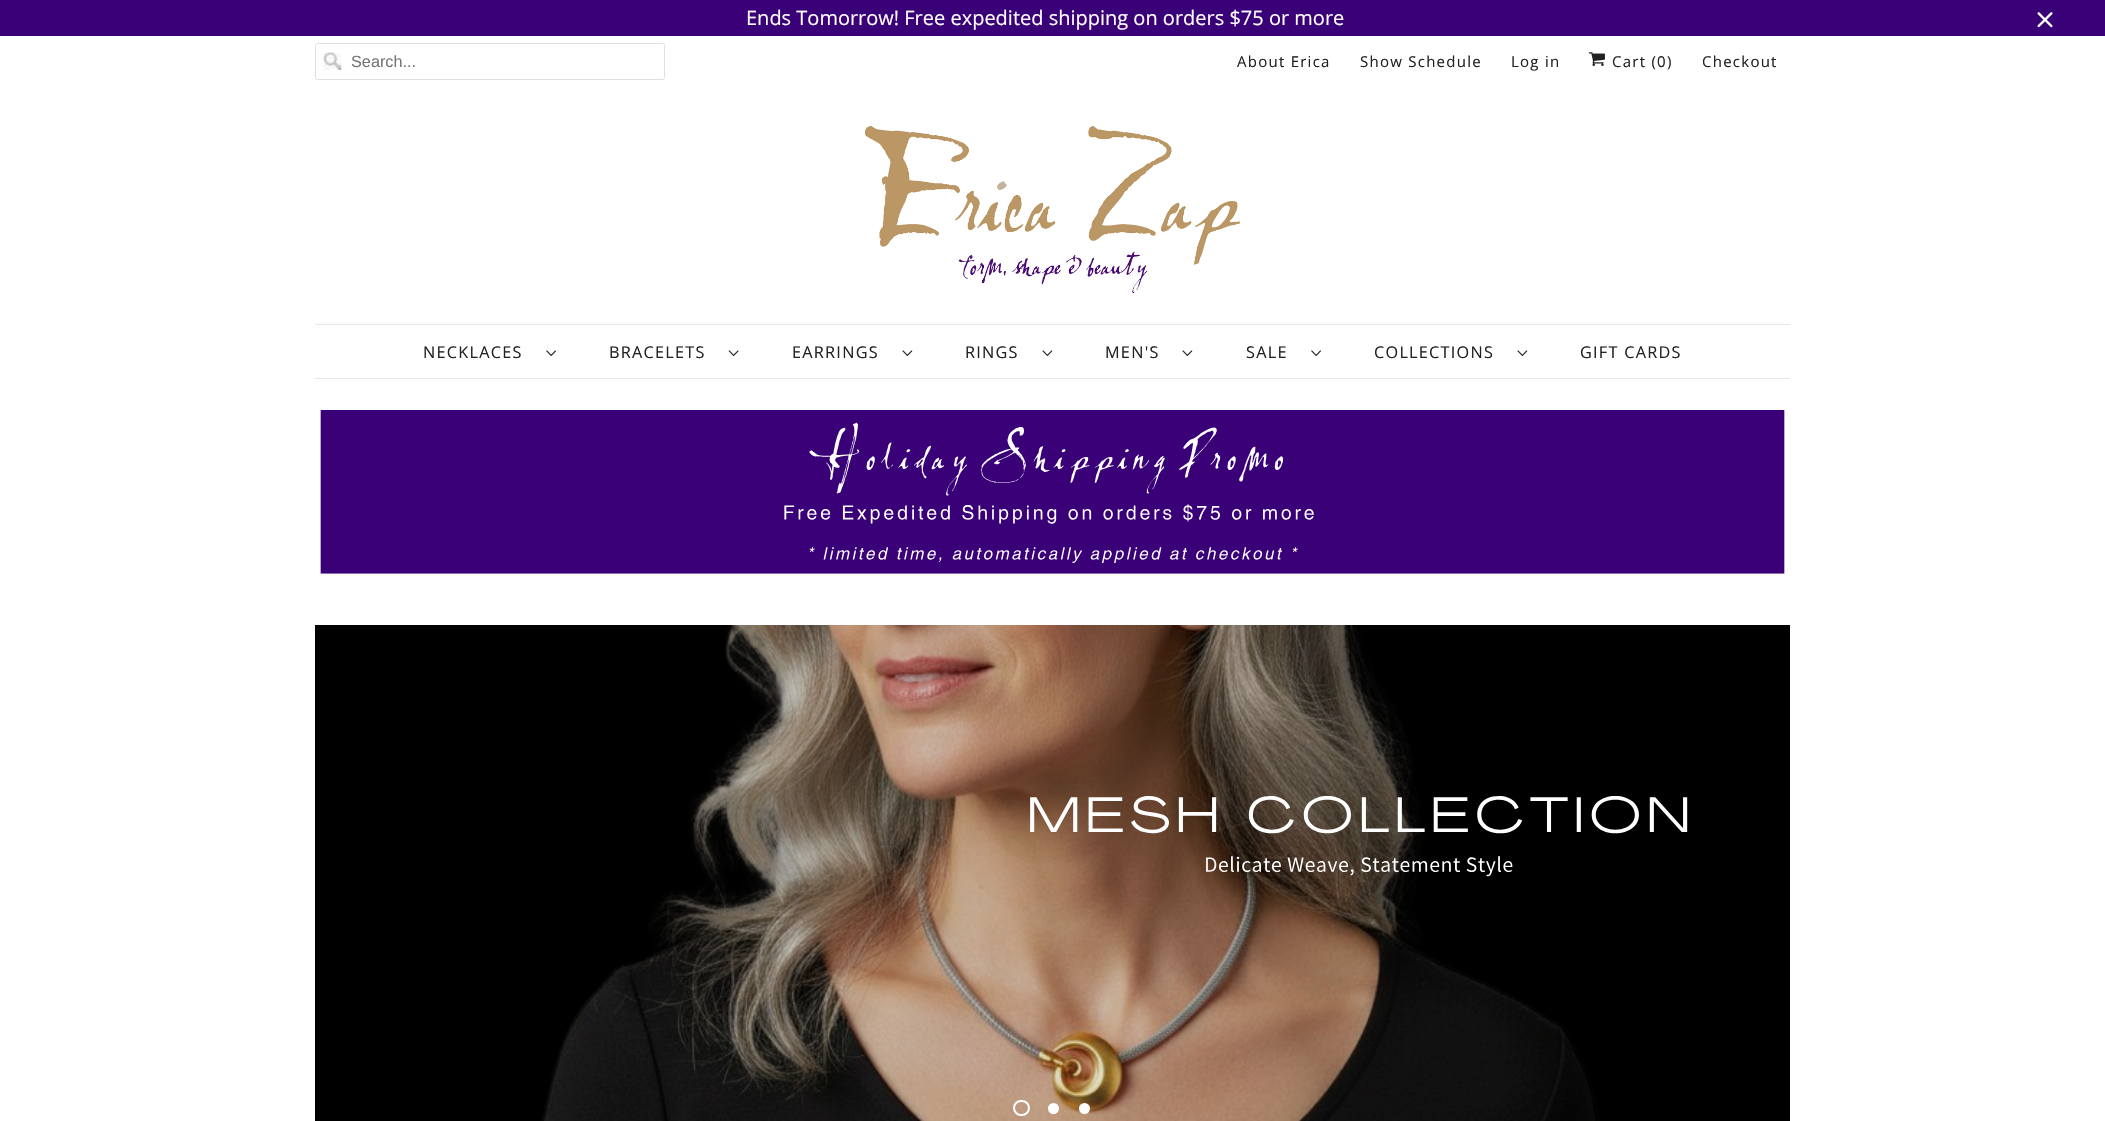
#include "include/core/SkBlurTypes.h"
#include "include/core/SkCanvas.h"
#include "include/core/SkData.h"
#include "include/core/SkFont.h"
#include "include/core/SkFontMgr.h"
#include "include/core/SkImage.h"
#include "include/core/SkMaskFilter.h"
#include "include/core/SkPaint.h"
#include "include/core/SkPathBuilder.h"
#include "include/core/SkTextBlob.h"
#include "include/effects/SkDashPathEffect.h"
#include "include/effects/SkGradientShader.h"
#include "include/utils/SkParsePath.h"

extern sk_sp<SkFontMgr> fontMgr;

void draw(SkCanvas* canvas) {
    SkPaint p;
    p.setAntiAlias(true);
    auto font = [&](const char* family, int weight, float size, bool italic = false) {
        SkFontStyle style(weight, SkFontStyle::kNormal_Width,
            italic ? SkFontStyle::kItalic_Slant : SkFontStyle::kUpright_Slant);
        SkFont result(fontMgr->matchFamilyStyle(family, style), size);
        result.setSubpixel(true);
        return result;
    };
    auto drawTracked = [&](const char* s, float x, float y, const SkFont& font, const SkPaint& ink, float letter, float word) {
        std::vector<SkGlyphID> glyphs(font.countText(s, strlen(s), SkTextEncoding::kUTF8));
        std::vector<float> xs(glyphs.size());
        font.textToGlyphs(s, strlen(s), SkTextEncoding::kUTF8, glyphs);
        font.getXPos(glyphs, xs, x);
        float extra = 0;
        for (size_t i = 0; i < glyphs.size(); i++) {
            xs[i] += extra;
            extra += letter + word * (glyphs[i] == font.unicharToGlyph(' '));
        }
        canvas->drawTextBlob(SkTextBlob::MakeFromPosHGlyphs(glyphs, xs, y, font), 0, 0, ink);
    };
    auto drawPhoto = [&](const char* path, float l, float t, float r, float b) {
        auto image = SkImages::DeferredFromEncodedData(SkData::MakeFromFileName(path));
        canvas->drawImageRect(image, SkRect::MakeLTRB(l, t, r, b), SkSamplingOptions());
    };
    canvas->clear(0xFFFFFFFF);
    p.setColor(0xFF390077);
    canvas->drawRect(SkRect::MakeLTRB(0, 0, 2105, 36), p);
    auto font1 = font("Open Sans", 400, 20);
    p.setColor(0xFFFFFFFF);
    canvas->drawString("Ends Tomorrow! Free expedited shipping on orders $75 or more", 746, 25, font1, p);
    drawPhoto("media/1.png", 2037, 12, 2053, 28);
    drawPhoto("media/2.png", 323, 52, 342, 70);
    p.setStyle(SkPaint::kStroke_Style);
    p.setStrokeWidth(1);
    p.setColor(0xFFDFDFDF);
    canvas->drawRoundRect(SkRect::MakeLTRB(315.5f, 43.5f, 664.5f, 79.5f), 2, 2, p);
    auto font2 = font("Liberation Sans", 400, 16.25f);
    p.setStyle(SkPaint::kFill_Style);
    p.setColor(0xFF757575);
    canvas->drawString("Search...", 351, 67, font2, p);
    auto font3 = font("Open Sans", 400, 15);
    p.setColor(0xFF222222);
    {
        const struct { const char* s; float x, y; } items[] = {
            {"About Erica", 1237, 67},
            {"Show Schedule", 1360, 67},
            {"Log in", 1511, 67},
        };
        for (auto [s, x, y] : items) {
            drawTracked(s, x, y, font3, p, 1.25f, 0);
        }
    }
    drawPhoto("media/3.png", 1588, 52, 1605, 66);
    drawTracked("Cart (0)", 1612, 67, font3, p, 1.25f, 0);
    drawTracked("Checkout", 1702, 67, font3, p, 1.25f, 0);
    drawPhoto("media/4.png", 865, 126, 1240, 293);
    p.setColor(0xFFE7E7E7);
    canvas->drawRect(SkRect::MakeLTRB(315, 324, 1790, 325), p);
    canvas->drawRect(SkRect::MakeLTRB(315, 378, 1790, 379), p);
    auto font4 = font("Open Sans", 400, 16.25f);
    p.setColor(0xFF222222);
    drawTracked("NECKLACES", 423, 358, font4, p, 1.25f, 0);
    drawPhoto("media/5.png", 546, 350, 556, 356);
    drawTracked("BRACELETS", 609, 358, font4, p, 1.25f, 0);
    drawPhoto("media/6.png", 728, 350, 739, 356);
    drawTracked("EARRINGS", 792, 358, font4, p, 1.25f, 0);
    drawPhoto("media/7.png", 902, 350, 913, 356);
    drawTracked("RINGS", 965, 358, font4, p, 1.25f, 0);
    drawPhoto("media/7.png", 1042, 350, 1053, 356);
    drawTracked("MEN'S", 1105, 358, font4, p, 1.25f, 0);
    drawPhoto("media/7.png", 1182, 350, 1193, 356);
    drawTracked("SALE", 1246, 358, font4, p, 1.25f, 0);
    drawPhoto("media/5.png", 1311, 350, 1321, 356);
    drawTracked("COLLECTIONS", 1374, 358, font4, p, 1.25f, 0);
    drawPhoto("media/7.png", 1517, 350, 1528, 356);
    drawTracked("GIFT CARDS", 1580, 358, font4, p, 1.25f, 0);
    drawPhoto("media/8.png", 320, 410, 1785, 574);
    drawPhoto("media/9.png", 315, 625, 1790, 1121);
    p.setStyle(SkPaint::kStroke_Style);
    p.setStrokeWidth(2);
    p.setColor(0xFFFFFFFF);
    canvas->drawRoundRect(SkRect::MakeLTRB(1014, 1101, 1029, 1115), 7, 7, p);
    p.setStyle(SkPaint::kFill_Style);
    canvas->drawCircle(1053.5f, 1108.5f, 5.5f, p);
    canvas->drawCircle(1084.5f, 1108.5f, 5.5f, p);
}
